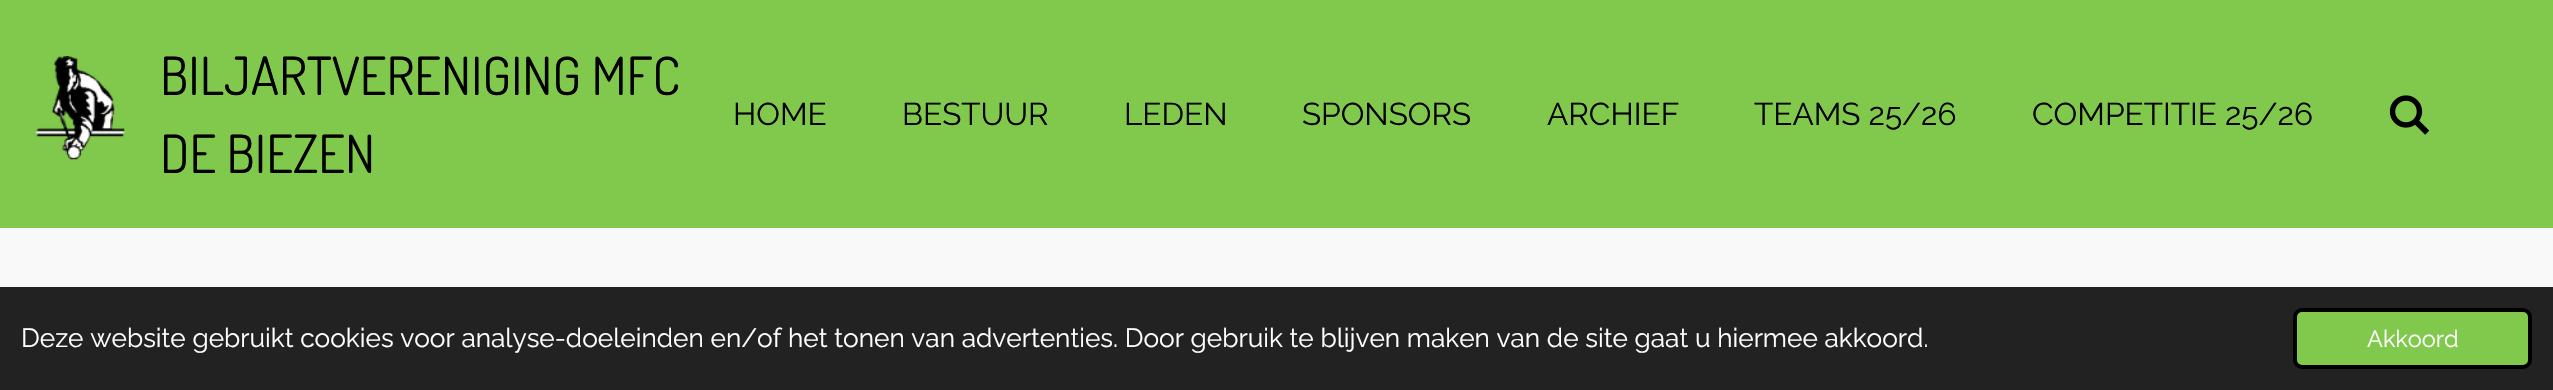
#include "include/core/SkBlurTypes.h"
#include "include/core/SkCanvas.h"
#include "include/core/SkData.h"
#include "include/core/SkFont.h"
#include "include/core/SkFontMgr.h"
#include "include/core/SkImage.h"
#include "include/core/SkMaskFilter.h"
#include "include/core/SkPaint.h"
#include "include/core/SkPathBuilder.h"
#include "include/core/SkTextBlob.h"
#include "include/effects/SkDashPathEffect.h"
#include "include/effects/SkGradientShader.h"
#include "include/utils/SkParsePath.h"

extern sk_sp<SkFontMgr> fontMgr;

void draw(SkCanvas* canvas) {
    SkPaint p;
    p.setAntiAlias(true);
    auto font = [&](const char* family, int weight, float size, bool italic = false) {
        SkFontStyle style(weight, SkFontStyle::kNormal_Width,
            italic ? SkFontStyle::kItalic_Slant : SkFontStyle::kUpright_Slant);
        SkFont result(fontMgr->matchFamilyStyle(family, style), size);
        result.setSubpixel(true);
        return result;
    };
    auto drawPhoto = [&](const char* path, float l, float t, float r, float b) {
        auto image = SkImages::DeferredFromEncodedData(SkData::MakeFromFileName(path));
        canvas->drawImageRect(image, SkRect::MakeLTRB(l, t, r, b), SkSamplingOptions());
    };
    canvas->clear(0xFF81C94C);
    drawPhoto("media/1.png", 35, 56, 125, 160);
    auto font1 = font("Dosis", 400, 52.5f);
    p.setColor(0xFF000000);
    canvas->drawString("BILJARTVERENIGING MFC", 160, 95, font1, p);
    canvas->drawString("DE BIEZEN", 160, 173, font1, p);
    auto font2 = font("Raleway", 400, 31.5f);
    {
        const struct { const char* s; float x, y; } items[] = {
            {"HOME", 733, 125},
            {"BESTUUR", 902, 125},
            {"LEDEN", 1124, 125},
            {"SPONSORS", 1302, 125},
            {"ARCHIEF", 1547, 125},
            {"TEAMS 25/26", 1754, 125},
            {"COMPETITIE 25/26", 2032, 125},
        };
        for (auto [s, x, y] : items) {
            canvas->drawString(s, x, y, font2, p);
        }
    }
    drawPhoto("media/2.png", 2389, 95, 2430, 135);
    p.setColor(0xFFF9F9F9);
    canvas->drawRect(SkRect::MakeLTRB(0, 228, 2553, 287), p);
    p.setColor(0xFF222222);
    canvas->drawRect(SkRect::MakeLTRB(0, 287, 2553, 390), p);
    auto font3 = font("Raleway", 400, 26.25f);
    p.setColor(0xFFFFFFFF);
    canvas->drawString("Deze website gebruikt cookies voor analyse-doeleinden en/of het tonen van advertenties. Door gebruik te blijven maken van de site gaat u hiermee akkoord.", 21, 347, font3, p);
    p.setColor(0xFF81C94C);
    canvas->drawRoundRect(SkRect::MakeLTRB(2295, 310, 2530, 367), 7, 7, p);
    p.setStyle(SkPaint::kStroke_Style);
    p.setStrokeWidth(4);
    p.setColor(0xFF000000);
    canvas->drawRoundRect(SkRect::MakeLTRB(2295, 310, 2530, 367), 7, 7, p);
    auto font4 = font("Raleway", 400, 23.5f);
    p.setStyle(SkPaint::kFill_Style);
    p.setColor(0xFFFFFFFF);
    canvas->drawString("Akkoord", 2367, 347, font4, p);
}
